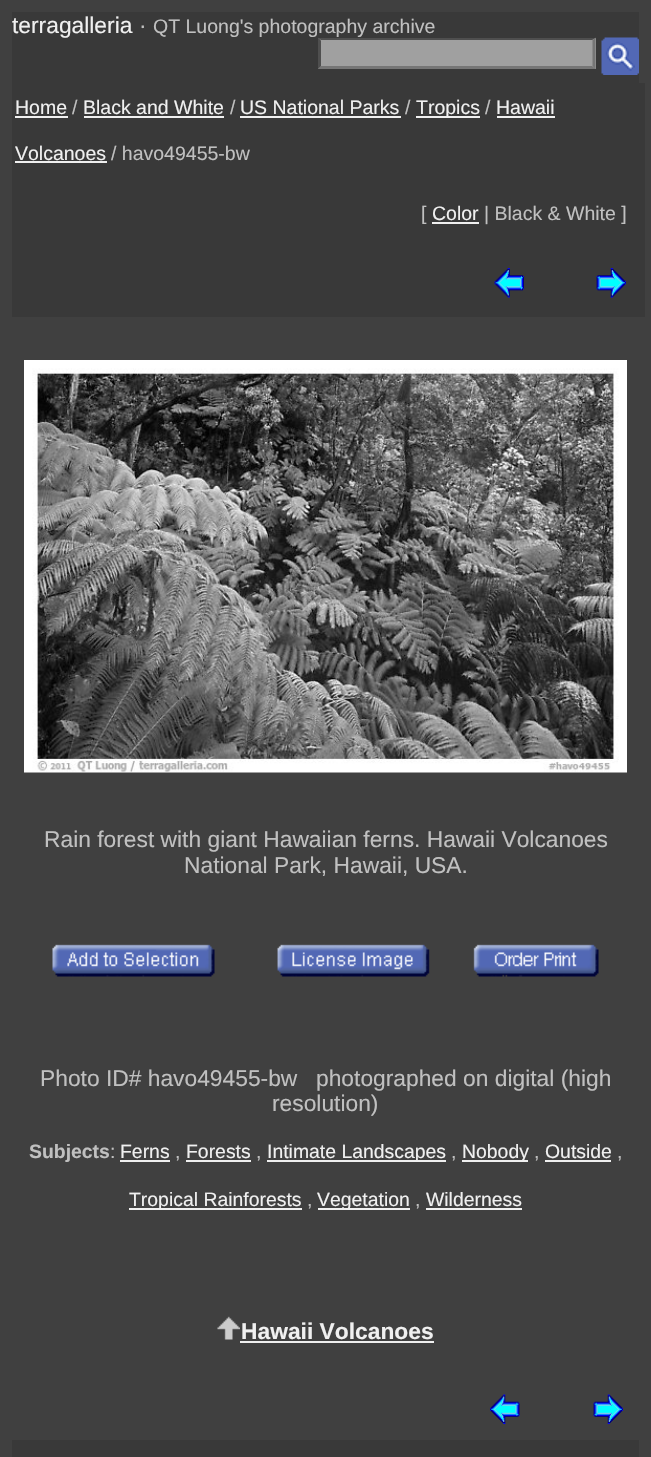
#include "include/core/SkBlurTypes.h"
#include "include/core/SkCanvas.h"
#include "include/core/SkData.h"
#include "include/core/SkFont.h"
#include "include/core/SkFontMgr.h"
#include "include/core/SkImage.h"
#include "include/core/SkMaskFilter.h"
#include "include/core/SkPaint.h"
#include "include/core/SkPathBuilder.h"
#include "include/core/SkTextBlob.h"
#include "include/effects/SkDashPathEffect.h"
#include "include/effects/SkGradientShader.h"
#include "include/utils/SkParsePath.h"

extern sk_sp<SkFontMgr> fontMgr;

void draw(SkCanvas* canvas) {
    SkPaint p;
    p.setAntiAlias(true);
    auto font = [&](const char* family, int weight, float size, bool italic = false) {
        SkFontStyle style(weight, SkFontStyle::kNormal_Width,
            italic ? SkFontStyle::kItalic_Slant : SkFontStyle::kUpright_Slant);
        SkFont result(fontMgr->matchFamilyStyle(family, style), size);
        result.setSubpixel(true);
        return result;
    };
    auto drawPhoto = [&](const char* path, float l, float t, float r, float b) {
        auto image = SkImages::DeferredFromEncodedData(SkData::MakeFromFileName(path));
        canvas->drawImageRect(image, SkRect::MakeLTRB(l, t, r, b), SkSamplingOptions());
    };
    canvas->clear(0xFF404040);
    p.setColor(0xFF393939);
    canvas->drawRect(SkRect::MakeLTRB(12, 12, 639, 83), p);
    auto font1 = font("Liberation Sans", 400, 22.8f);
    p.setColor(0xFFF0F0F0);
    canvas->drawString("terragalleria", 12, 33, font1, p);
    p.setColor(0xFFC0C0C0);
    canvas->drawString("·", 139, 33, font1, p);
    auto font2 = font("Liberation Sans", 400, 19.5f);
    canvas->drawString("QT Luong's photography archive", 153, 33, font2, p);
    p.setColor(0xFFA0A0A0);
    canvas->drawRect(SkRect::MakeLTRB(318, 38, 596, 69), p);
    p.setColor(0xFF4F4F4F);
    canvas->drawPath(SkPathBuilder().moveTo(318, 38).lineTo(596, 38).lineTo(592, 40).lineTo(321, 40).close().detach(), p);
    p.setColor(0xFF767676);
    canvas->drawPath(SkPathBuilder().moveTo(595.5f, 37.5f).lineTo(595.5f, 69).lineTo(592.5f, 66).lineTo(592.5f, 40.5f).close().detach(), p);
    canvas->drawPath(SkPathBuilder().moveTo(596, 69).lineTo(318, 69).lineTo(321, 66).lineTo(592, 66).close().detach(), p);
    p.setColor(0xFF4F4F4F);
    canvas->drawPath(SkPathBuilder().moveTo(318, 69).lineTo(318, 37.5f).lineTo(321, 40.5f).lineTo(321, 66).close().detach(), p);
    drawPhoto("media/1.png", 601, 37, 639, 75);
    p.setColor(0xFF393939);
    canvas->drawRect(SkRect::MakeLTRB(12, 83, 645, 317), p);
    p.setColor(0xFFF0F0F0);
    canvas->drawString("Home", 15, 114, font2, p);
    canvas->drawRect(SkRect::MakeLTRB(15, 116, 68, 118), p);
    p.setColor(0xFFC0C0C0);
    canvas->drawString("/", 72, 114, font2, p);
    p.setColor(0xFFF0F0F0);
    canvas->drawString("Black and White", 83, 114, font2, p);
    canvas->drawRect(SkRect::MakeLTRB(84, 116, 224, 118), p);
    p.setColor(0xFFC0C0C0);
    canvas->drawString("/", 230, 114, font2, p);
    p.setColor(0xFFF0F0F0);
    canvas->drawString("US National Parks", 240, 114, font2, p);
    canvas->drawRect(SkRect::MakeLTRB(240, 116, 401, 118), p);
    p.setColor(0xFFC0C0C0);
    canvas->drawString("/", 405, 114, font2, p);
    p.setColor(0xFFF0F0F0);
    canvas->drawRect(SkRect::MakeLTRB(416, 116, 480, 118), p);
    canvas->drawString("Tropics", 416, 114, font2, p);
    p.setColor(0xFFC0C0C0);
    canvas->drawString("/", 485, 114, font2, p);
    p.setColor(0xFFF0F0F0);
    canvas->drawString("Hawaii", 496, 114, font2, p);
    canvas->drawRect(SkRect::MakeLTRB(497, 116, 555, 118), p);
    canvas->drawString("Volcanoes", 15, 160, font2, p);
    canvas->drawRect(SkRect::MakeLTRB(15, 161, 107, 163), p);
    p.setColor(0xFFC0C0C0);
    canvas->drawString("/ havo49455-bw", 111, 160, font2, p);
    canvas->drawString("[", 421, 220, font2, p);
    p.setColor(0xFFF0F0F0);
    canvas->drawString("Color", 432, 220, font2, p);
    canvas->drawRect(SkRect::MakeLTRB(432, 222, 479, 224), p);
    p.setColor(0xFFC0C0C0);
    canvas->drawString("| Black & White ]", 484, 220, font2, p);
    drawPhoto("media/2.png", 494, 268, 524, 298);
    drawPhoto("media/3.png", 596, 268, 626, 298);
    drawPhoto("media/4.png", 24, 360, 627, 773);
    canvas->drawString("Rain forest with giant Hawaiian ferns. Hawaii Volcanoes", 44, 847, font1, p);
    canvas->drawString("National Park, Hawaii, USA.", 184, 873, font1, p);
    drawPhoto("media/5.png", 52, 944, 215, 977);
    drawPhoto("media/6.png", 277, 944, 430, 977);
    drawPhoto("media/7.png", 473, 944, 599, 977);
    {
        const struct { const char* s; float x, y; } items[] = {
            {"Photo ID# havo49455-bw", 40, 1086},
            {"photographed on digital (high", 316, 1086},
            {"resolution)", 272, 1111},
        };
        for (auto [s, x, y] : items) {
            canvas->drawString(s, x, y, font1, p);
        }
    }
    auto font3 = font("Liberation Sans", 700, 19.4f);
    canvas->drawString("Subjects", 29, 1158, font3, p);
    auto font4 = font("Liberation Sans", 400, 19.4f);
    canvas->drawString(":", 110, 1158, font4, p);
    p.setColor(0xFFF0F0F0);
    canvas->drawString("Ferns", 120, 1158, font4, p);
    canvas->drawRect(SkRect::MakeLTRB(120, 1160, 170, 1162), p);
    p.setColor(0xFFC0C0C0);
    canvas->drawString(",", 175, 1158, font4, p);
    p.setColor(0xFFF0F0F0);
    canvas->drawString("Forests", 186, 1158, font4, p);
    canvas->drawRect(SkRect::MakeLTRB(186, 1160, 251, 1162), p);
    p.setColor(0xFFC0C0C0);
    canvas->drawString(",", 256, 1158, font4, p);
    p.setColor(0xFFF0F0F0);
    canvas->drawRect(SkRect::MakeLTRB(267, 1160, 446, 1162), p);
    canvas->drawString("Intimate Landscapes", 267, 1158, font4, p);
    p.setColor(0xFFC0C0C0);
    canvas->drawString(",", 451, 1158, font4, p);
    p.setColor(0xFFF0F0F0);
    canvas->drawRect(SkRect::MakeLTRB(462, 1160, 528, 1162), p);
    canvas->drawString("Nobody", 462, 1158, font4, p);
    p.setColor(0xFFC0C0C0);
    canvas->drawString(",", 534, 1158, font4, p);
    p.setColor(0xFFF0F0F0);
    canvas->drawString("Outside", 545, 1158, font4, p);
    canvas->drawRect(SkRect::MakeLTRB(545, 1160, 611, 1162), p);
    p.setColor(0xFFC0C0C0);
    canvas->drawString(",", 617, 1158, font4, p);
    p.setColor(0xFFF0F0F0);
    canvas->drawRect(SkRect::MakeLTRB(129, 1208, 302, 1210), p);
    canvas->drawString("Tropical Rainforests", 129, 1206, font4, p);
    p.setColor(0xFFC0C0C0);
    canvas->drawString(",", 307, 1206, font4, p);
    p.setColor(0xFFF0F0F0);
    canvas->drawRect(SkRect::MakeLTRB(318, 1208, 410, 1210), p);
    canvas->drawString("Vegetation", 317, 1206, font4, p);
    p.setColor(0xFFC0C0C0);
    canvas->drawString(",", 415, 1206, font4, p);
    p.setColor(0xFFF0F0F0);
    canvas->drawString("Wilderness", 426, 1206, font4, p);
    canvas->drawRect(SkRect::MakeLTRB(426, 1208, 522, 1210), p);
    drawPhoto("media/8.png", 217, 1316, 240, 1340);
    auto font5 = font("Liberation Sans", 700, 22.8f);
    canvas->drawString("Hawaii Volcanoes", 241, 1339, font5, p);
    canvas->drawRect(SkRect::MakeLTRB(240, 1341, 434, 1343), p);
    drawPhoto("media/9.png", 490, 1394, 520, 1424);
    drawPhoto("media/10.png", 593, 1394, 623, 1424);
    p.setColor(0xFF393939);
    canvas->drawRect(SkRect::MakeLTRB(12, 1440, 639, 1457), p);
}
